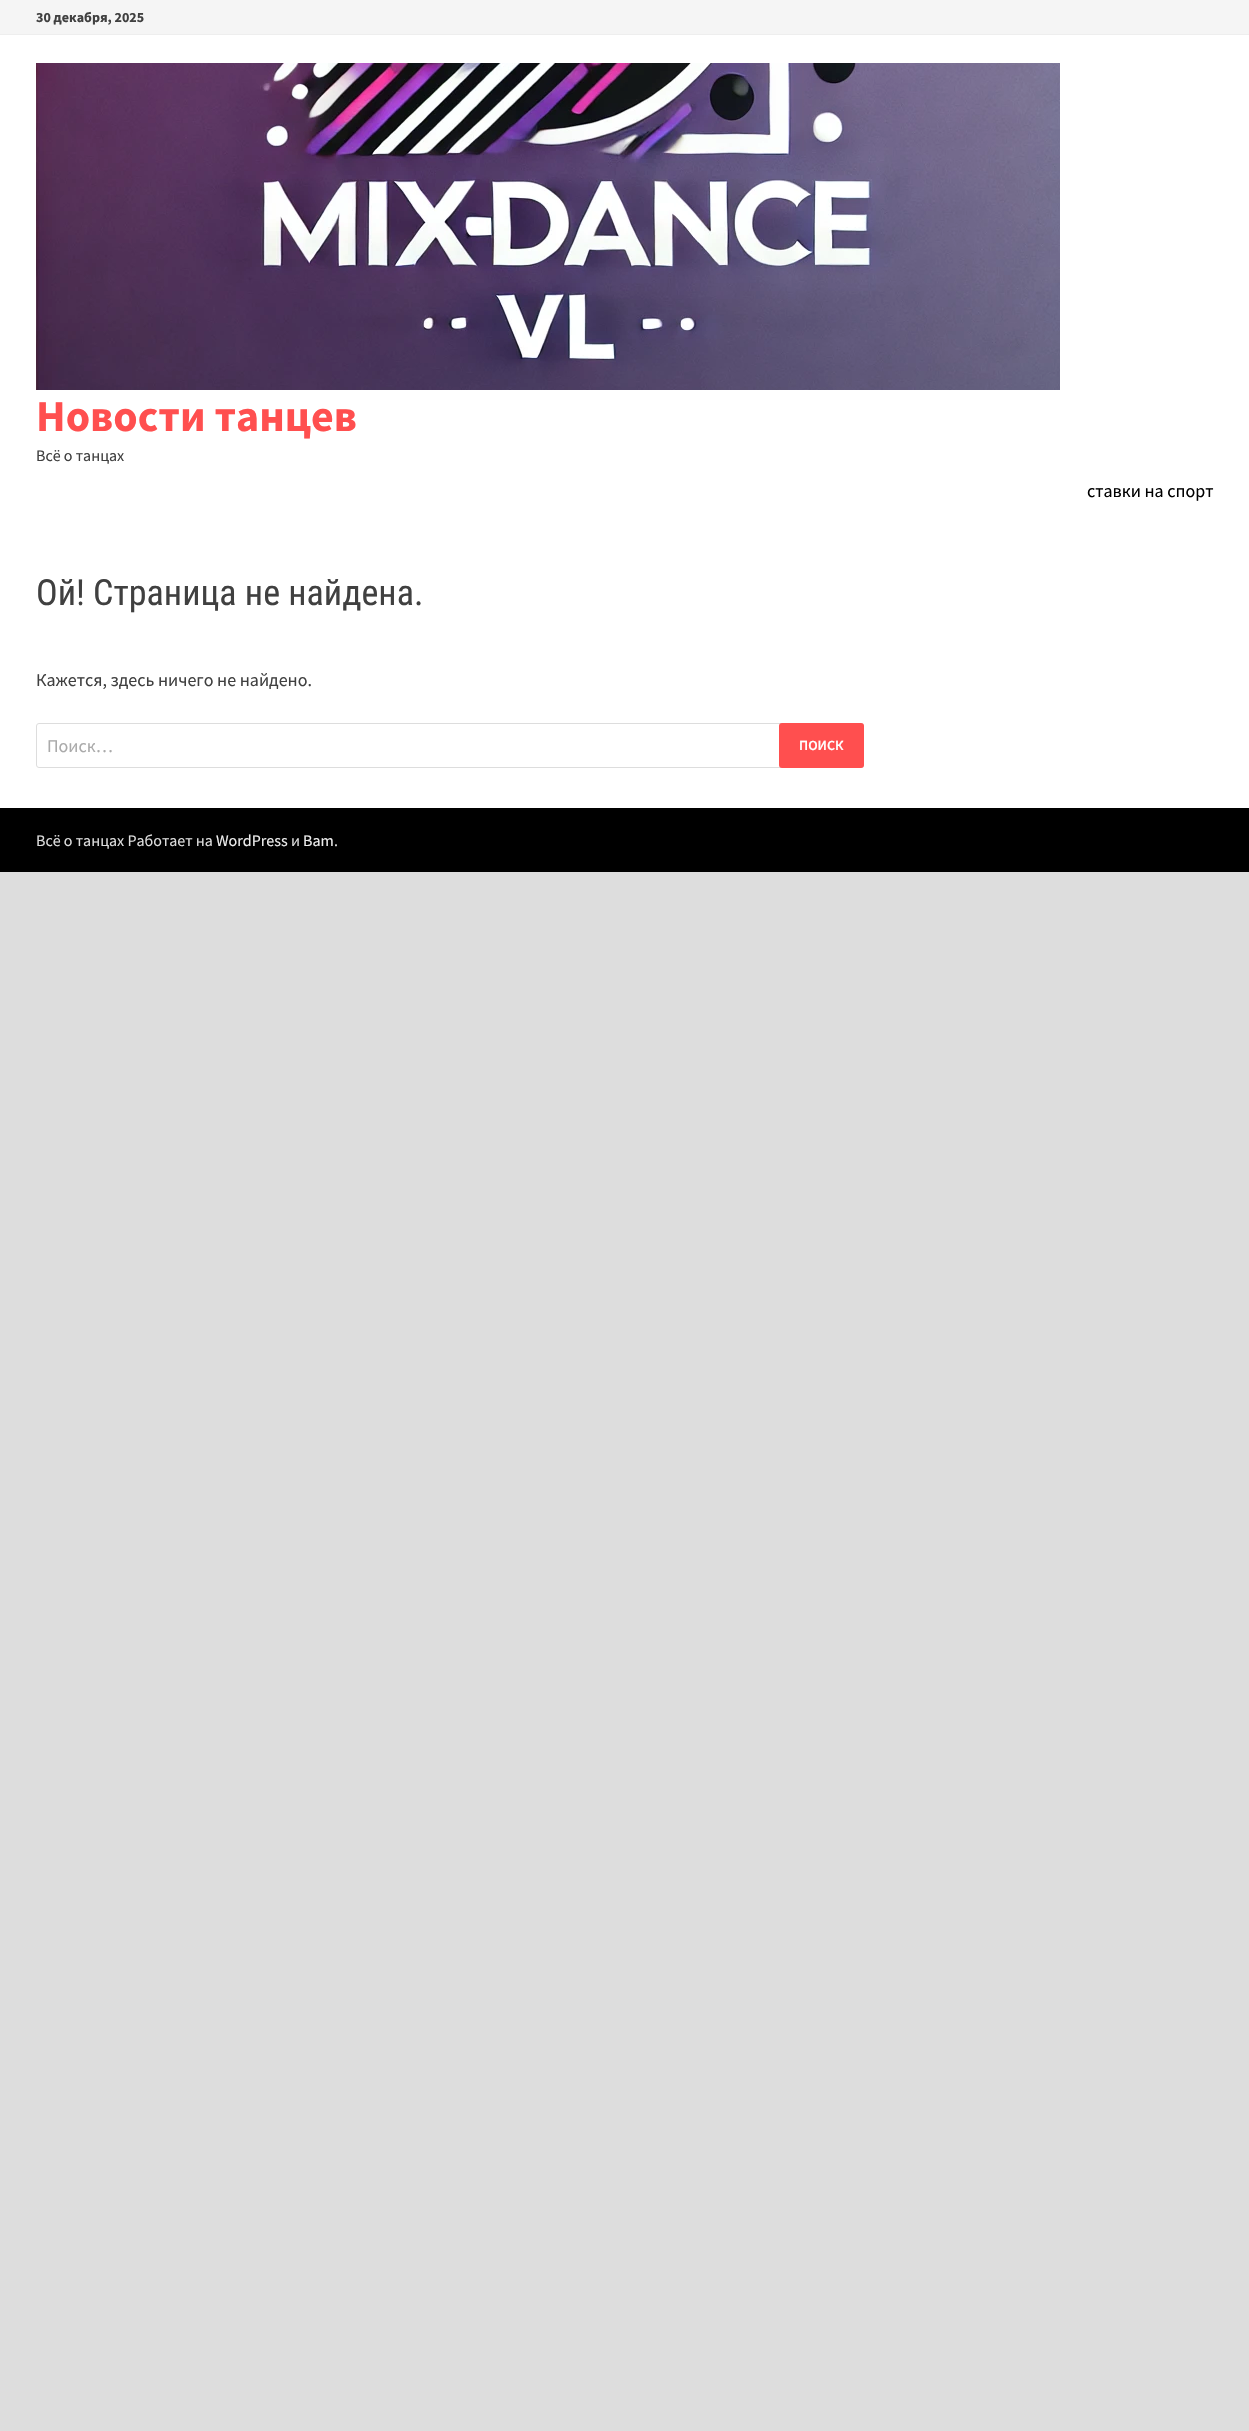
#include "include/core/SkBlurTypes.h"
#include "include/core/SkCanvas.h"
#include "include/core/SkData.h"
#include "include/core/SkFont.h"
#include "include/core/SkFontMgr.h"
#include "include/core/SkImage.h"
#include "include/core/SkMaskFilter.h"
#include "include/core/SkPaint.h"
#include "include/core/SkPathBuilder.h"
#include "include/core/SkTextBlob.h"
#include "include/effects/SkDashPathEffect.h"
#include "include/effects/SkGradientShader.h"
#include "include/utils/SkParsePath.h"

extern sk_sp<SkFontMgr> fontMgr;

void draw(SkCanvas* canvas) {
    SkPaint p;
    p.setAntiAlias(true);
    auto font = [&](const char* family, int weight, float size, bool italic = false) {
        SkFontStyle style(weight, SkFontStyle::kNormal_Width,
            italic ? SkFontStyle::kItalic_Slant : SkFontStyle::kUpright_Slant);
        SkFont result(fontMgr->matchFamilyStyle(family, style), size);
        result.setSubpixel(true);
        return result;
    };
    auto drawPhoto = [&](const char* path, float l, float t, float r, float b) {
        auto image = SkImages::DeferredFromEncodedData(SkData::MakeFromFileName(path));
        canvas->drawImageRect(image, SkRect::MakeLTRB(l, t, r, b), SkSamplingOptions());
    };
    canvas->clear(0xFFDDDDDD);
    {
        const struct { float l, t, r, b; SkColor color; } items[] = {
            {0, 35, 1249, 808, 0xFFFFFFFF},
            {0, 0, 1249, 34, 0xFFF5F5F5},
            {0, 34, 1249, 35, 0xFFEEEEEE},
        };
        for (auto [l, t, r, b, color] : items) {
            p.setColor(color);
            canvas->drawRect(SkRect::MakeLTRB(l, t, r, b), p);
        }
    }
    auto font1 = font("Source Sans Pro", 700, 14);
    p.setColor(0xFF404040);
    canvas->drawString("30 декабря, 2025", 36, 22, font1, p);
    drawPhoto("media/1.png", 36, 63, 1060, 390);
    auto font2 = font("Source Sans Pro", 700, 44);
    p.setColor(0xFFFF4F4F);
    canvas->drawString("Новости танцев", 36, 431, font2, p);
    auto font3 = font("Source Sans Pro", 400, 16);
    p.setColor(0xFF404040);
    canvas->drawString("Всё о танцах", 36, 461, font3, p);
    auto font4 = font("Source Sans Pro", 400, 18);
    p.setColor(0xFF000000);
    canvas->drawString("ставки на спорт", 1087, 497, font4, p);
    auto font5 = font("Roboto Condensed", 400, 36);
    p.setColor(0xFF404040);
    canvas->drawString("Ой! Страница не найдена.", 36, 605, font5, p);
    canvas->drawString("Кажется, здесь ничего не найдено.", 36, 686, font4, p);
    p.setStyle(SkPaint::kStroke_Style);
    p.setStrokeWidth(1);
    p.setColor(0xFFDDDDDD);
    canvas->drawRoundRect(SkRect::MakeLTRB(36.5f, 723.5f, 863.5f, 767.5f), 2.5f, 2.5f, p);
    p.setStyle(SkPaint::kFill_Style);
    p.setColor(0xFFAAAAAA);
    canvas->drawString("Поиск…", 47, 752, font4, p);
    p.setColor(0xFFFF4F4F);
    canvas->drawRoundRect(SkRect::MakeLTRB(779, 723, 864, 768), 3, 3, p);
    auto font6 = font("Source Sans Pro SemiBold", 600, 14);
    p.setColor(0xFFFFFFFF);
    canvas->drawString("ПОИСК", 799, 750, font6, p);
    p.setColor(0xFF000000);
    canvas->drawRect(SkRect::MakeLTRB(0, 808, 1249, 872), p);
    p.setColor(0xFFDDDDDD);
    canvas->drawString("Всё о танцах Работает на", 36, 846, font3, p);
    p.setColor(0xFFEEEEEE);
    canvas->drawString("WordPress", 216, 846, font3, p);
    p.setColor(0xFFDDDDDD);
    canvas->drawString("и", 291, 846, font3, p);
    p.setColor(0xFFEEEEEE);
    canvas->drawString("Bam", 303, 846, font3, p);
    p.setColor(0xFFDDDDDD);
    canvas->drawString(".", 334, 846, font3, p);
}
